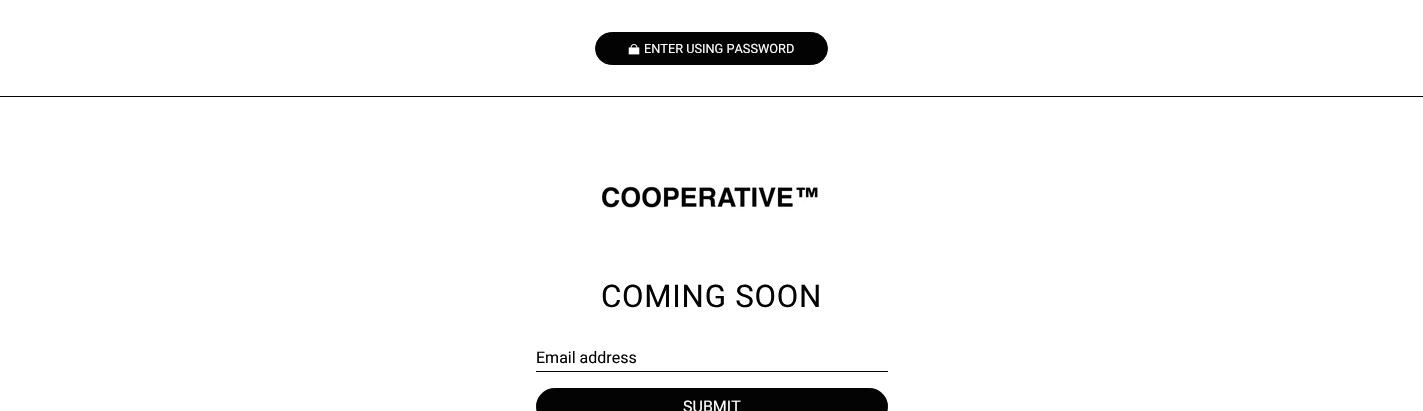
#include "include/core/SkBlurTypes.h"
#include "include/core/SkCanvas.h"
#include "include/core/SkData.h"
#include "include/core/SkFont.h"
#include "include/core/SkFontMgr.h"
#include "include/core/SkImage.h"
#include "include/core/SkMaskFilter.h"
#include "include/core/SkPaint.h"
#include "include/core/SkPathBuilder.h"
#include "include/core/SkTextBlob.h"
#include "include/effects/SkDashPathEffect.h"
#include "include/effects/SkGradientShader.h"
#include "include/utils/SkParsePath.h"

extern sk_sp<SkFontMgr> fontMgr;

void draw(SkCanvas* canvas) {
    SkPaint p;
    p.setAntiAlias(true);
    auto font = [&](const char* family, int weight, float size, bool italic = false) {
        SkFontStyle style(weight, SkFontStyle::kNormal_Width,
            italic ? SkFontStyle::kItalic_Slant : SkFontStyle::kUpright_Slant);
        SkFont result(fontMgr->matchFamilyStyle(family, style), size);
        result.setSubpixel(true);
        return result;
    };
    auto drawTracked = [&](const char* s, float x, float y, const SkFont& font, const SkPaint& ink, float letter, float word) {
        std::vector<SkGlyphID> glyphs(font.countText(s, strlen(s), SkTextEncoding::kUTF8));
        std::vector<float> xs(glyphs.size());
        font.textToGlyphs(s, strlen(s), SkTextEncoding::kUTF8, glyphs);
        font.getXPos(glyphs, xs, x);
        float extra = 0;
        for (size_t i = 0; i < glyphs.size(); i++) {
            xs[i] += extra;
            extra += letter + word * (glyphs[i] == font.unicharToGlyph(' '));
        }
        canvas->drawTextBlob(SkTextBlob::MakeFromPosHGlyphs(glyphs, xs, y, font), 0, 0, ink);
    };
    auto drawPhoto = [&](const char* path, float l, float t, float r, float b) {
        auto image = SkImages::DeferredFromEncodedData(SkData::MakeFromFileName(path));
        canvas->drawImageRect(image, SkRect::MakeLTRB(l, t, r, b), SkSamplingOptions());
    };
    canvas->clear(0xFFFFFFFF);
    p.setColor(0xFF030303);
    canvas->drawRoundRect(SkRect::MakeLTRB(595.5f, 32.5f, 827.5f, 64.5f), 16, 16, p);
    p.setStyle(SkPaint::kStroke_Style);
    p.setStrokeWidth(1);
    canvas->drawRoundRect(SkRect::MakeLTRB(595.5f, 32.5f, 827.5f, 64.5f), 16, 16, p);
    drawPhoto("media/1.png", 628, 44, 640, 55);
    auto font1 = font("Roboto", 400, 12.75f);
    p.setStyle(SkPaint::kFill_Style);
    p.setColor(0xFFFFFFFF);
    canvas->drawString("ENTER USING PASSWORD", 644, 53, font1, p);
    p.setColor(0xFF030303);
    canvas->drawRect(SkRect::MakeLTRB(0, 96, 1423, 97), p);
    drawPhoto("media/2.png", 600, 185, 818, 209);
    auto font2 = font("Roboto", 400, 31.25f);
    drawTracked("COMING SOON", 601, 307, font2, p, 0.75f, 0);
    canvas->drawRect(SkRect::MakeLTRB(536, 371, 888, 372), p);
    auto font3 = font("Roboto", 400, 16);
    canvas->drawString("Email address", 536, 363, font3, p);
    canvas->drawRoundRect(SkRect::MakeLTRB(536.5f, 388.5f, 887.5f, 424.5f), 18, 18, p);
    p.setStyle(SkPaint::kStroke_Style);
    canvas->drawRoundRect(SkRect::MakeLTRB(536.5f, 388.5f, 887.5f, 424.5f), 18, 18, p);
    p.setStyle(SkPaint::kFill_Style);
    p.setColor(0xFFFFFFFF);
    canvas->drawString("SUBMIT", 683, 412, font3, p);
}
